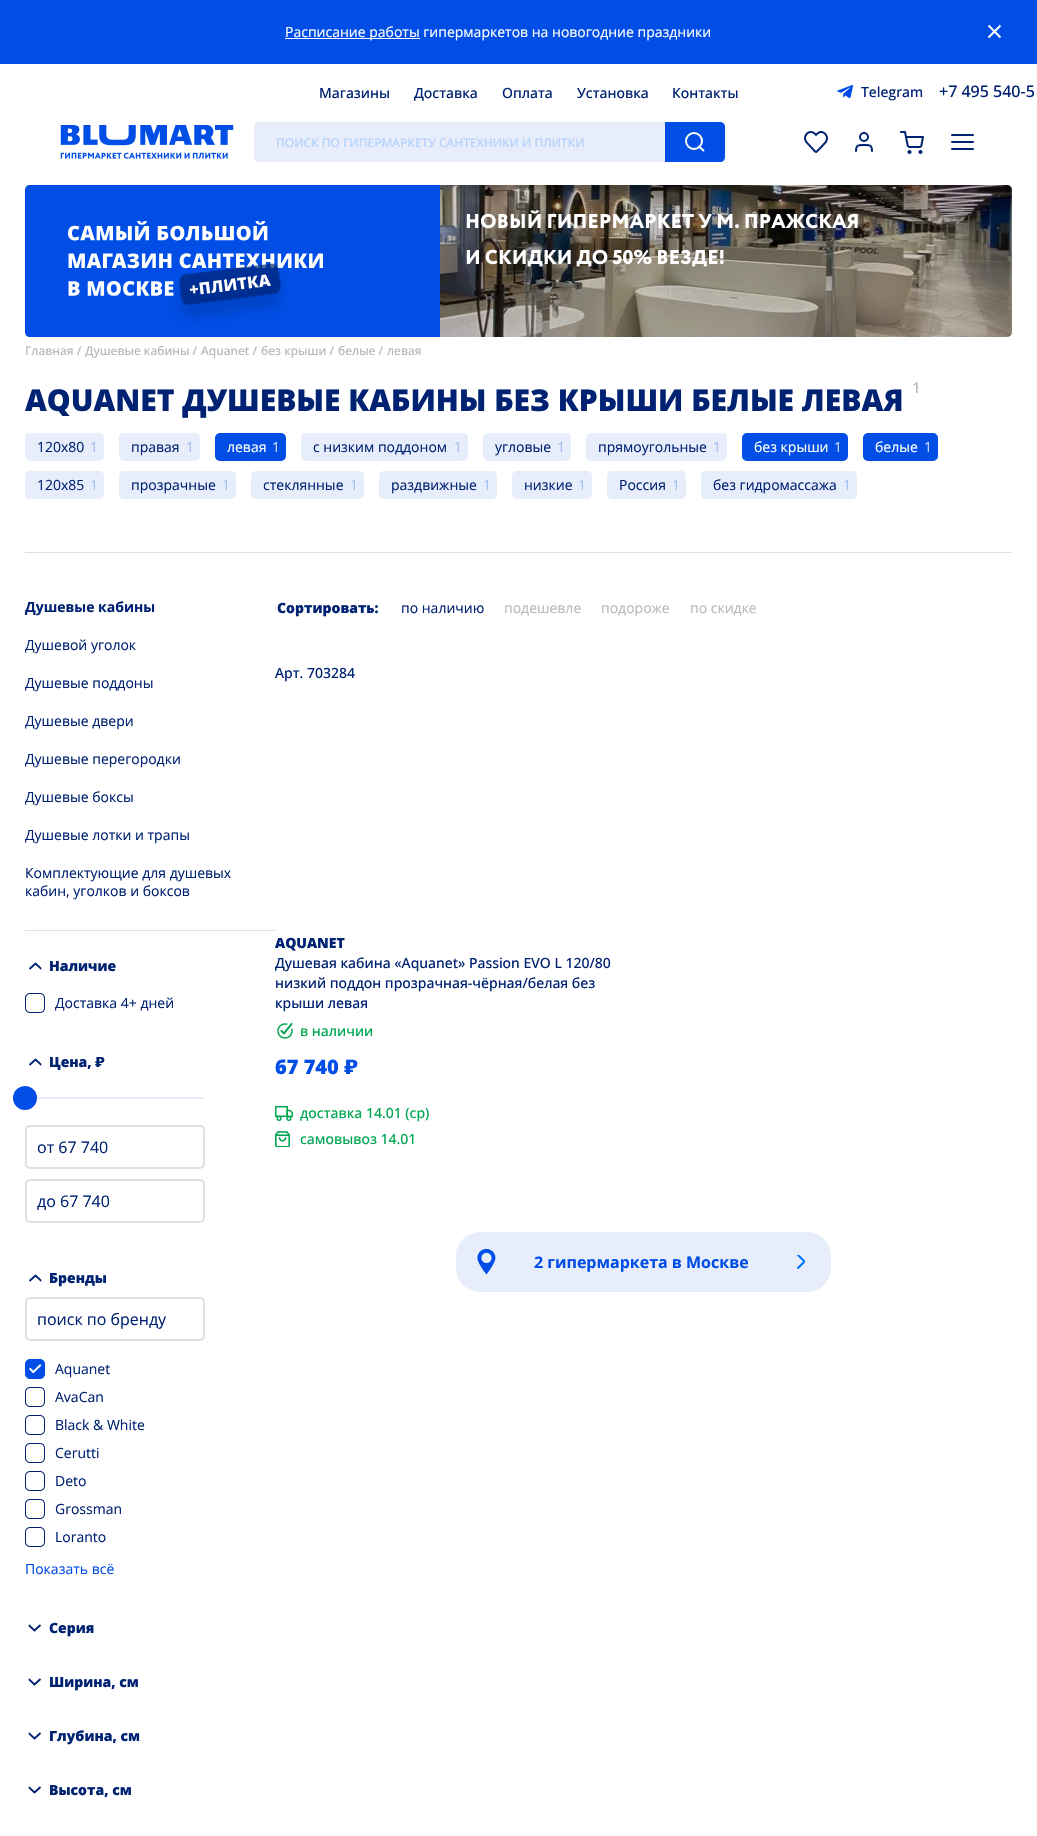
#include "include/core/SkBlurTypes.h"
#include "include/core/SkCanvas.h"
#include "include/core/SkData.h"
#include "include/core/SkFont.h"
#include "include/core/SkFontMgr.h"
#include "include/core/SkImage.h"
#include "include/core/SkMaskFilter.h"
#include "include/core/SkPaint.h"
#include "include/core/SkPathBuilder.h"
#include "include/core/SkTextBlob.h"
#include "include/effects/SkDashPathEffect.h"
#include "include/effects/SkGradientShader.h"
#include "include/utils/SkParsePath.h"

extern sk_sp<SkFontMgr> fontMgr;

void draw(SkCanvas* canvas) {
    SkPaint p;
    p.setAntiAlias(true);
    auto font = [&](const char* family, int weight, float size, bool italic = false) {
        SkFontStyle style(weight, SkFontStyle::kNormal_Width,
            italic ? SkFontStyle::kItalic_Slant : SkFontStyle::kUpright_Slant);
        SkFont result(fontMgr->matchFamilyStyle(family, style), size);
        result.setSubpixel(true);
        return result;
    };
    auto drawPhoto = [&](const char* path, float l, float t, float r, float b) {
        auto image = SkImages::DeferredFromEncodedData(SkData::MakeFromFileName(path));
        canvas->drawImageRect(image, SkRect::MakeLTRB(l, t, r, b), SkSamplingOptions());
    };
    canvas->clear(0xFFFFFFFF);
    p.setColor(0xFF004EE6);
    canvas->drawRect(SkRect::MakeLTRB(0, 0, 1037, 64), p);
    p.setColor(0xFFFFFFFF);
    canvas->drawRect(SkRect::MakeLTRB(285, 38, 420, 39), p);
    auto font1 = font("Open Sans", 400, 14);
    canvas->drawString("Расписание работы гипермаркетов на новогодние праздники", 285, 37, font1, p);
    p.setStyle(SkPaint::kStroke_Style);
    p.setStrokeWidth(2);
    canvas->drawPath(SkPathBuilder().moveTo(988.5f, 37.5f).lineTo(1000.5f, 25.5f).moveTo(988.5f, 25.5f).lineTo(1000.5f, 37.5f).detach(), p);
    auto font2 = font("Open Sans", 500, 14);
    p.setStyle(SkPaint::kFill_Style);
    p.setColor(0xFF002273);
    {
        const struct { const char* s; float x, y; } items[] = {
            {"Магазины", 319, 98},
            {"Доставка", 414, 98},
            {"Оплата", 502, 98},
            {"Установка", 577, 98},
            {"Контакты", 672, 98},
        };
        for (auto [s, x, y] : items) {
            canvas->drawString(s, x, y, font2, p);
        }
    }
    drawPhoto("media/1.png", 837, 85, 853, 98);
    canvas->drawString("Telegram", 861, 97, font2, p);
    auto font3 = font("Open Sans", 500, 16);
    canvas->drawString("+7 495 540-5", 939, 97, font3, p);
    drawPhoto("media/2.png", 60, 125, 234, 159);
    p.setColor(0xFFE7EDFA);
    canvas->drawPath(SkPathBuilder().moveTo(259, 122).lineTo(665, 122).lineTo(665, 162).lineTo(259, 162).cubicTo(256, 162, 254, 160, 254, 157).lineTo(254, 127).cubicTo(254, 124, 256, 122, 259, 122).close().detach(), p);
    canvas->drawPath(SkPathBuilder(SkPathFillType::kEvenOdd).moveTo(259, 122).lineTo(665, 122).lineTo(665, 162).lineTo(259, 162).cubicTo(256, 162, 254, 160, 254, 157).lineTo(254, 127).cubicTo(254, 124, 256, 122, 259, 122).close().moveTo(259, 124).lineTo(665, 124).lineTo(665, 160).lineTo(259, 160).cubicTo(257, 160, 256, 159, 256, 157).lineTo(256, 127).cubicTo(256, 125, 257, 124, 259, 124).close().detach(), p);
    auto font4 = font("Open Sans", 500, 12);
    p.setColor(0xFFB4D1FC);
    canvas->drawString("ПОИСК ПО ГИПЕРМАРКЕТУ САНТЕХНИКИ И ПЛИТКИ", 276, 147, font4, p);
    p.setColor(0xFF004EE6);
    canvas->drawPath(SkPathBuilder().moveTo(665, 122).lineTo(720, 122).cubicTo(723, 122, 725, 124, 725, 127).lineTo(725, 157).cubicTo(725, 160, 723, 162, 720, 162).lineTo(665, 162).close().detach(), p);
    p.setStyle(SkPaint::kStroke_Style);
    p.setColor(0xFFFFFFFF);
    canvas->drawCircle(694, 141, 8, p);
    p.setStrokeCap(SkPaint::kRound_Cap);
    p.setStrokeJoin(SkPaint::kRound_Join);
    canvas->drawPath(SkPathBuilder().moveTo(703.5f, 150.5f).lineTo(699, 146.5f).detach(), p);
    drawPhoto("media/3.png", 804, 131, 828, 153);
    p.setColor(0xFF002273);
    canvas->drawPath(SkPathBuilder().moveTo(872, 151).cubicTo(872, 144.5f, 869.5f, 145, 864, 145).cubicTo(858.5f, 145, 856, 144.5f, 856, 151).detach(), p);
    p.setStrokeCap(SkPaint::kButt_Cap);
    p.setStrokeJoin(SkPaint::kMiter_Join);
    canvas->drawCircle(864, 137, 4, p);
    drawPhoto("media/4.png", 900, 131, 924, 154);
    p.setStrokeCap(SkPaint::kRound_Cap);
    canvas->drawPath(SkPathBuilder().moveTo(952, 135).lineTo(973, 135).moveTo(952, 142).lineTo(973, 142).moveTo(952, 149).lineTo(973, 149).detach(), p);
    p.setStyle(SkPaint::kFill_Style);
    p.setColor(0xFFD7D5C7);
    canvas->drawRoundRect(SkRect::MakeLTRB(25, 185, 1012, 337), 5, 5, p);
    p.setColor(0xFF004EE6);
    canvas->drawPath(SkPathBuilder().moveTo(30, 185).lineTo(440, 185).lineTo(440, 337).lineTo(30, 337).cubicTo(27, 337, 25, 335, 25, 332).lineTo(25, 190).cubicTo(25, 187, 27, 185, 30, 185).close().detach(), p);
    drawPhoto("media/5.png", 68, 221, 323, 323);
    drawPhoto("media/6.png", 440, 185, 1012, 337);
    p.setColor(0x33000000);
    canvas->drawPath(SkPathBuilder().moveTo(440, 185).lineTo(1007, 185).cubicTo(1010, 185, 1012, 187, 1012, 190).lineTo(1012, 332).cubicTo(1012, 335, 1010, 337, 1007, 337).lineTo(440, 337).close().detach(), p);
    drawPhoto("media/7.png", 466, 210, 858, 229);
    drawPhoto("media/8.png", 466, 249, 724, 267);
    p.setColor(0xFFB8B8B8);
    {
        const struct { const char* s; float x, y; } items[] = {
            {"Главная /", 25, 355},
            {"Душевые кабины /", 85, 355},
            {"Aquanet /", 201, 355},
            {"без крыши /", 261, 355},
            {"белые /", 338, 355},
            {"левая", 387, 355},
        };
        for (auto [s, x, y] : items) {
            canvas->drawString(s, x, y, font4, p);
        }
    }
    auto font5 = font("Open Sans", 500, 15);
    canvas->drawString("1", 912, 393, font5, p);
    auto font6 = font("Open Sans", 800, 30);
    p.setColor(0xFF002273);
    canvas->drawString("AQUANET ДУШЕВЫЕ КАБИНЫ БЕЗ КРЫШИ БЕЛЫЕ ЛЕВАЯ", 25, 411, font6, p);
    p.setColor(0xFFDFDFDF);
    canvas->drawRect(SkRect::MakeLTRB(25, 552, 1012, 553), p);
    p.setColor(0xFFE7EDFA);
    canvas->drawRoundRect(SkRect::MakeLTRB(25, 433, 104, 461), 5, 5, p);
    p.setColor(0xFF002273);
    canvas->drawString("120x80", 37, 452, font1, p);
    p.setColor(0xFFA2BDF4);
    canvas->drawString("1", 90, 452, font1, p);
    p.setColor(0xFFE7EDFA);
    canvas->drawRoundRect(SkRect::MakeLTRB(119, 433, 200, 461), 5, 5, p);
    p.setColor(0xFF002273);
    canvas->drawString("правая", 131, 452, font1, p);
    p.setColor(0xFFA2BDF4);
    canvas->drawString("1", 186, 452, font1, p);
    p.setColor(0xFF004EE6);
    canvas->drawRoundRect(SkRect::MakeLTRB(215, 433, 286, 461), 5, 5, p);
    p.setColor(0xFFFFFFFF);
    canvas->drawString("левая", 227, 452, font1, p);
    p.setColor(0xFFCCDCFA);
    canvas->drawString("1", 272, 452, font1, p);
    p.setColor(0xFFE7EDFA);
    canvas->drawRoundRect(SkRect::MakeLTRB(301, 433, 468, 461), 5, 5, p);
    p.setColor(0xFF002273);
    canvas->drawString("с низким поддоном", 313, 452, font1, p);
    p.setColor(0xFFA2BDF4);
    canvas->drawString("1", 454, 452, font1, p);
    p.setColor(0xFFE7EDFA);
    canvas->drawRoundRect(SkRect::MakeLTRB(483, 433, 571, 461), 5, 5, p);
    p.setColor(0xFF002273);
    canvas->drawString("угловые", 495, 452, font1, p);
    p.setColor(0xFFA2BDF4);
    canvas->drawString("1", 557, 452, font1, p);
    p.setColor(0xFFE7EDFA);
    canvas->drawRoundRect(SkRect::MakeLTRB(586, 433, 727, 461), 5, 5, p);
    p.setColor(0xFF002273);
    canvas->drawString("прямоугольные", 598, 452, font1, p);
    p.setColor(0xFFA2BDF4);
    canvas->drawString("1", 713, 452, font1, p);
    p.setColor(0xFF004EE6);
    canvas->drawRoundRect(SkRect::MakeLTRB(742, 433, 848, 461), 5, 5, p);
    p.setColor(0xFFFFFFFF);
    canvas->drawString("без крыши", 754, 452, font1, p);
    p.setColor(0xFFCCDCFA);
    canvas->drawString("1", 834, 452, font1, p);
    p.setColor(0xFF004EE6);
    canvas->drawRoundRect(SkRect::MakeLTRB(863, 433, 938, 461), 5, 5, p);
    p.setColor(0xFFFFFFFF);
    canvas->drawString("белые", 875, 452, font1, p);
    p.setColor(0xFFCCDCFA);
    canvas->drawString("1", 924, 452, font1, p);
    p.setColor(0xFFE7EDFA);
    canvas->drawRoundRect(SkRect::MakeLTRB(25, 471, 104, 499), 5, 5, p);
    p.setColor(0xFF002273);
    canvas->drawString("120x85", 37, 490, font1, p);
    p.setColor(0xFFA2BDF4);
    canvas->drawString("1", 90, 490, font1, p);
    p.setColor(0xFFE7EDFA);
    canvas->drawRoundRect(SkRect::MakeLTRB(119, 471, 236, 499), 5, 5, p);
    p.setColor(0xFF002273);
    canvas->drawString("прозрачные", 131, 490, font1, p);
    p.setColor(0xFFA2BDF4);
    canvas->drawString("1", 222, 490, font1, p);
    p.setColor(0xFFE7EDFA);
    canvas->drawRoundRect(SkRect::MakeLTRB(251, 471, 364, 499), 5, 5, p);
    p.setColor(0xFF002273);
    canvas->drawString("стеклянные", 263, 490, font1, p);
    p.setColor(0xFFA2BDF4);
    canvas->drawString("1", 350, 490, font1, p);
    p.setColor(0xFFE7EDFA);
    canvas->drawRoundRect(SkRect::MakeLTRB(379, 471, 497, 499), 5, 5, p);
    p.setColor(0xFF002273);
    canvas->drawString("раздвижные", 391, 490, font1, p);
    p.setColor(0xFFA2BDF4);
    canvas->drawString("1", 483, 490, font1, p);
    p.setColor(0xFFE7EDFA);
    canvas->drawRoundRect(SkRect::MakeLTRB(512, 471, 592, 499), 5, 5, p);
    p.setColor(0xFF002273);
    canvas->drawString("низкие", 524, 490, font1, p);
    p.setColor(0xFFA2BDF4);
    canvas->drawString("1", 578, 490, font1, p);
    p.setColor(0xFFE7EDFA);
    canvas->drawRoundRect(SkRect::MakeLTRB(607, 471, 686, 499), 5, 5, p);
    p.setColor(0xFF002273);
    canvas->drawString("Россия", 619, 490, font1, p);
    p.setColor(0xFFA2BDF4);
    canvas->drawString("1", 672, 490, font1, p);
    p.setColor(0xFFE7EDFA);
    canvas->drawRoundRect(SkRect::MakeLTRB(701, 471, 857, 499), 5, 5, p);
    p.setColor(0xFF002273);
    canvas->drawString("без гидромассажа", 713, 490, font1, p);
    p.setColor(0xFFA2BDF4);
    canvas->drawString("1", 843, 490, font1, p);
    p.setColor(0xFFDFDFDF);
    canvas->drawRect(SkRect::MakeLTRB(25, 930, 275, 931), p);
    auto font7 = font("Open Sans", 700, 14);
    p.setColor(0xFF002273);
    canvas->drawString("Душевые кабины", 25, 612, font7, p);
    {
        const struct { const char* s; float x, y; } items[] = {
            {"Душевой уголок", 25, 650},
            {"Душевые поддоны", 25, 688},
            {"Душевые двери", 25, 726},
            {"Душевые перегородки", 25, 764},
            {"Душевые боксы", 25, 802},
            {"Душевые лотки и трапы", 25, 840},
            {"Комплектующие для душевых", 25, 878},
            {"кабин, уголков и боксов", 25, 896},
        };
        for (auto [s, x, y] : items) {
            canvas->drawString(s, x, y, font1, p);
        }
    }
    canvas->save();
    canvas->clipPath(SkPathBuilder().moveTo(28.5f, 970).lineTo(28.5f, 962).lineTo(41.5f, 962).lineTo(41.5f, 970).close().detach(), true);
    p.setStyle(SkPaint::kStroke_Style);
    p.setStrokeWidth(1.9f);
    p.setStrokeCap(SkPaint::kButt_Cap);
    canvas->drawPath(SkPathBuilder().moveTo(41.5f, 969).lineTo(35.5f, 963.5f).lineTo(29.5f, 969).detach(), p);
    canvas->restore();
    auto font8 = font("Open Sans", 800, 14);
    p.setStyle(SkPaint::kFill_Style);
    canvas->drawString("Наличие", 49, 971, font8, p);
    drawPhoto("media/9.png", 25, 993, 45, 1013);
    canvas->drawString("Доставка 4+ дней", 55, 1008, font1, p);
    canvas->save();
    canvas->clipPath(SkPathBuilder().moveTo(28.5f, 1066).lineTo(28.5f, 1058).lineTo(41.5f, 1058).lineTo(41.5f, 1066).close().detach(), true);
    p.setStyle(SkPaint::kStroke_Style);
    canvas->drawPath(SkPathBuilder().moveTo(41.5f, 1065).lineTo(35.5f, 1059.5f).lineTo(29.5f, 1065).detach(), p);
    canvas->restore();
    p.setStyle(SkPaint::kFill_Style);
    canvas->drawString("Цена,", 49, 1067, font8, p);
    auto font9 = font("Arial", 900, 14);
    canvas->drawString("₽", 95, 1067, font9, p);
    p.setColor(0xFFE7EDFA);
    canvas->drawRect(SkRect::MakeLTRB(36, 1097, 205, 1099), p);
    p.setColor(0xFF004EE6);
    canvas->drawCircle(25, 1098, 12, p);
    p.setStyle(SkPaint::kStroke_Style);
    p.setStrokeWidth(2);
    p.setColor(0xFFDFDFDF);
    canvas->drawRoundRect(SkRect::MakeLTRB(26, 1126, 204, 1168), 4, 4, p);
    auto font10 = font("Open Sans", 400, 16);
    p.setStyle(SkPaint::kFill_Style);
    p.setColor(0xFF002273);
    canvas->drawString("от 67 740", 37, 1153, font10, p);
    p.setStyle(SkPaint::kStroke_Style);
    p.setColor(0xFFDFDFDF);
    canvas->drawRoundRect(SkRect::MakeLTRB(26, 1180, 204, 1222), 4, 4, p);
    p.setStyle(SkPaint::kFill_Style);
    p.setColor(0xFF002273);
    canvas->drawString("до 67 740", 37, 1207, font10, p);
    canvas->save();
    canvas->clipPath(SkPathBuilder().moveTo(28.5f, 1282).lineTo(28.5f, 1274).lineTo(41.5f, 1274).lineTo(41.5f, 1282).close().detach(), true);
    p.setStyle(SkPaint::kStroke_Style);
    p.setStrokeWidth(1.9f);
    canvas->drawPath(SkPathBuilder().moveTo(41.5f, 1281).lineTo(35.5f, 1275.5f).lineTo(29.5f, 1281).detach(), p);
    canvas->restore();
    p.setStyle(SkPaint::kFill_Style);
    canvas->drawString("Бренды", 49, 1283, font8, p);
    p.setStyle(SkPaint::kStroke_Style);
    p.setStrokeWidth(2);
    p.setColor(0xFFDFDFDF);
    canvas->drawRoundRect(SkRect::MakeLTRB(26, 1298, 204, 1340), 4, 4, p);
    p.setStyle(SkPaint::kFill_Style);
    p.setColor(0xFF002273);
    canvas->drawString("поиск по бренду", 37, 1325, font10, p);
    drawPhoto("media/10.png", 25, 1359, 45, 1379);
    canvas->drawString("Aquanet", 55, 1374, font1, p);
    drawPhoto("media/9.png", 25, 1387, 45, 1407);
    canvas->drawString("AvaCan", 55, 1402, font1, p);
    drawPhoto("media/9.png", 25, 1415, 45, 1435);
    canvas->drawString("Black & White", 55, 1430, font1, p);
    drawPhoto("media/9.png", 25, 1443, 45, 1463);
    canvas->drawString("Cerutti", 55, 1458, font1, p);
    drawPhoto("media/9.png", 25, 1471, 45, 1491);
    canvas->drawString("Deto", 55, 1486, font1, p);
    drawPhoto("media/9.png", 25, 1499, 45, 1519);
    canvas->drawString("Grossman", 55, 1514, font1, p);
    drawPhoto("media/9.png", 25, 1527, 45, 1547);
    canvas->drawString("Loranto", 55, 1542, font1, p);
    p.setColor(0xFF004EE6);
    canvas->drawString("Показать всё", 25, 1574, font1, p);
    canvas->save();
    canvas->clipPath(SkPathBuilder().moveTo(41.5f, 1624).lineTo(41.5f, 1632).lineTo(28.5f, 1632).lineTo(28.5f, 1624).close().detach(), true);
    p.setStyle(SkPaint::kStroke_Style);
    p.setStrokeWidth(1.9f);
    p.setColor(0xFF002273);
    canvas->drawPath(SkPathBuilder().moveTo(28.5f, 1625).lineTo(34.5f, 1630.5f).lineTo(40.5f, 1625).detach(), p);
    canvas->restore();
    p.setStyle(SkPaint::kFill_Style);
    canvas->drawString("Серия", 49, 1633, font8, p);
    canvas->save();
    canvas->clipPath(SkPathBuilder().moveTo(41.5f, 1678).lineTo(41.5f, 1686).lineTo(28.5f, 1686).lineTo(28.5f, 1678).close().detach(), true);
    p.setStyle(SkPaint::kStroke_Style);
    canvas->drawPath(SkPathBuilder().moveTo(28.5f, 1679).lineTo(34.5f, 1684.5f).lineTo(40.5f, 1679).detach(), p);
    canvas->restore();
    p.setStyle(SkPaint::kFill_Style);
    canvas->drawString("Ширина, см", 49, 1687, font8, p);
    canvas->save();
    canvas->clipPath(SkPathBuilder().moveTo(41.5f, 1732).lineTo(41.5f, 1740).lineTo(28.5f, 1740).lineTo(28.5f, 1732).close().detach(), true);
    p.setStyle(SkPaint::kStroke_Style);
    canvas->drawPath(SkPathBuilder().moveTo(28.5f, 1733).lineTo(34.5f, 1738.5f).lineTo(40.5f, 1733).detach(), p);
    canvas->restore();
    p.setStyle(SkPaint::kFill_Style);
    canvas->drawString("Глубина, см", 49, 1741, font8, p);
    canvas->save();
    canvas->clipPath(SkPathBuilder().moveTo(41.5f, 1786).lineTo(41.5f, 1794).lineTo(28.5f, 1794).lineTo(28.5f, 1786).close().detach(), true);
    p.setStyle(SkPaint::kStroke_Style);
    canvas->drawPath(SkPathBuilder().moveTo(28.5f, 1787).lineTo(34.5f, 1792.5f).lineTo(40.5f, 1787).detach(), p);
    canvas->restore();
    p.setStyle(SkPaint::kFill_Style);
    canvas->drawString("Высота, см", 49, 1795, font8, p);
    canvas->drawString("Сортировать:", 277, 613, font8, p);
    canvas->drawString("по наличию", 401, 613, font1, p);
    p.setColor(0xFFB8B8B8);
    {
        const struct { const char* s; float x, y; } items[] = {
            {"подешевле", 504, 613},
            {"подороже", 601, 613},
            {"по скидке", 690, 613},
        };
        for (auto [s, x, y] : items) {
            canvas->drawString(s, x, y, font1, p);
        }
    }
    p.setColor(0xFF002273);
    canvas->drawString("Арт. 703284", 275, 678, font2, p);
    canvas->drawString("AQUANET", 275, 948, font8, p);
    {
        const struct { const char* s; float x, y; } items[] = {
            {"Душевая кабина «Aquanet» Passion EVO L 120/80", 275, 968},
            {"низкий поддон прозрачная-чёрная/белая без", 275, 988},
            {"крыши левая", 275, 1008},
        };
        for (auto [s, x, y] : items) {
            canvas->drawString(s, x, y, font2, p);
        }
    }
    drawPhoto("media/11.png", 277, 1023, 293, 1039);
    p.setColor(0xFF00A651);
    canvas->drawString("в наличии", 300, 1036, font2, p);
    auto font11 = font("Open Sans", 800, 20);
    p.setColor(0xFF004EE6);
    canvas->drawString("67 740", 275, 1074, font11, p);
    auto font12 = font("Arial", 900, 20);
    canvas->drawString("₽", 344, 1074, font12, p);
    drawPhoto("media/12.png", 275, 1106, 293, 1121);
    p.setColor(0xFF00A651);
    canvas->drawString("доставка 14.01 (ср)", 300, 1118, font2, p);
    drawPhoto("media/13.png", 275, 1131, 290, 1147);
    canvas->drawString("самовывоз 14.01", 300, 1144, font2, p);
    p.setColor(0xFFE7EDFA);
    canvas->drawRoundRect(SkRect::MakeLTRB(456, 1232, 831, 1292), 24, 24, p);
    drawPhoto("media/14.png", 477, 1249, 496, 1275);
    auto font13 = font("Open Sans", 700, 16);
    p.setColor(0xFF004EE6);
    canvas->drawString("2 гипермаркета в Москве", 534, 1268, font13, p);
    canvas->save();
    canvas->clipRect(SkRect::MakeLTRB(796, 1255, 805, 1270));
    p.setStyle(SkPaint::kStroke_Style);
    p.setStrokeWidth(2);
    p.setColor(0xFF0074FF);
    canvas->drawPath(SkPathBuilder().moveTo(797.5f, 1268.5f).lineTo(804.5f, 1261.5f).lineTo(797.5f, 1254.5f).detach(), p);
    canvas->restore();
}
